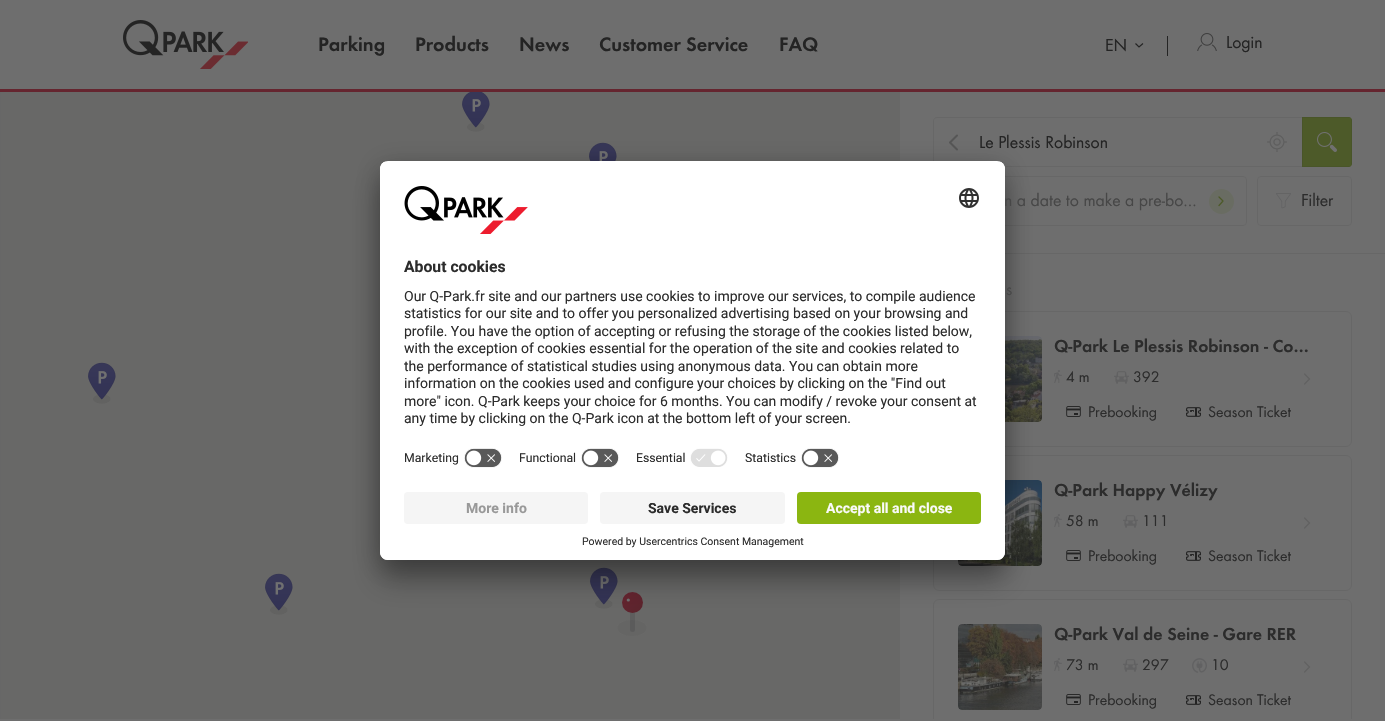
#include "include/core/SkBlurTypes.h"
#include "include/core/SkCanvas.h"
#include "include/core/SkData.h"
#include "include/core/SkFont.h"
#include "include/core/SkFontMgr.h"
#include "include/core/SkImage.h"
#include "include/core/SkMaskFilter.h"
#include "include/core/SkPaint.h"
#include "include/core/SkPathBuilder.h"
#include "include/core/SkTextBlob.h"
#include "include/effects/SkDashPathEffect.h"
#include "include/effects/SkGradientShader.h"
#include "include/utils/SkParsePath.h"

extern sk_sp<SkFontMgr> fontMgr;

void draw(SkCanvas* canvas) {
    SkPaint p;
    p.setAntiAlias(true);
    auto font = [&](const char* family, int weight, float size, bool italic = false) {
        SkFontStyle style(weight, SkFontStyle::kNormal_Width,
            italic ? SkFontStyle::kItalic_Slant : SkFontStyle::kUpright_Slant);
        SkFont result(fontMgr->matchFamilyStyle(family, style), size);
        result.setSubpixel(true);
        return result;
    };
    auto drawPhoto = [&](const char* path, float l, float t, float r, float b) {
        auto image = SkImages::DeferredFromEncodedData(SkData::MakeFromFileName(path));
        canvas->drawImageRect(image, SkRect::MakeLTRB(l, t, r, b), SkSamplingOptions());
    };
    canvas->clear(0xFF6E6E6E);
    p.setColor(0xFF676767);
    canvas->drawRect(SkRect::MakeLTRB(0, 90, 1, 719), p);
    p.setColor(0xFF65252F);
    canvas->drawRect(SkRect::MakeLTRB(0, 89, 1385, 92), p);
    drawPhoto("media/1.png", 123, 20, 248, 69);
    auto font1 = font("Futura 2", 400, 20.25f);
    p.setColor(0xFF242424);
    {
        const struct { const char* s; float x, y; } items[] = {
            {"Parking", 318, 51},
            {"Products", 415, 51},
            {"News", 519, 51},
            {"Customer Service", 599, 51},
            {"FAQ", 779, 51},
        };
        for (auto [s, x, y] : items) {
            canvas->drawString(s, x, y, font1, p);
        }
    }
    auto font2 = font("Futura", 400, 18);
    canvas->drawString("EN", 1105, 51, font2, p);
    p.setStyle(SkPaint::kStroke_Style);
    p.setStrokeWidth(1.2f);
    canvas->drawPath(SkPathBuilder().moveTo(1135.5f, 43.5f).lineTo(1139, 47).lineTo(1143, 43.5f).detach(), p);
    p.setStyle(SkPaint::kFill_Style);
    canvas->drawRect(SkRect::MakeLTRB(1167, 36, 1168, 56), p);
    drawPhoto("media/2.png", 1197, 33, 1217, 51);
    canvas->drawString("Login", 1226, 48, font2, p);
    p.setColor(0xFF686867);
    canvas->drawRect(SkRect::MakeLTRB(1, 92, 900, 719), p);
    drawPhoto("media/8.png", 589, 142, 617, 161);
    drawPhoto("media/9.png", 590, 567, 618, 609);
    p.setColor(0xFF5E5E5E);
    canvas->drawRoundRect(SkRect::MakeLTRB(630, 602, 635, 632), 2.5f, 2.5f, p);
    {
        const SkColor colors[] = {0xFF65242F, 0xFF5C242D};
        const float stops[] = {0, 1};
        const SkPoint ends[] = {{626, 594}, {639, 610}};
        p.setShader(SkGradientShader::MakeLinear(ends, colors, stops, 2, SkTileMode::kClamp));
        p.setAlpha(255);
    }
    canvas->drawCircle(632.5f, 602.5f, 10.5f, p);
    p.setShader(nullptr);
    p.setColor(0x0D242424);
    canvas->drawOval(SkRect::MakeLTRB(617.5f, 620, 646.5f, 636), p);
    p.setColor(0xFF707070);
    canvas->drawCircle(628.3f, 600, 1.6f, p);
    p.setColor(0xFF676767);
    canvas->drawRect(SkRect::MakeLTRB(1005, 253, 1385, 254), p);
    canvas->drawPath(SkPathBuilder(SkPathFillType::kEvenOdd).moveTo(937, 117).lineTo(1302, 117).lineTo(1302, 167).lineTo(937, 167).cubicTo(935, 167, 933, 165, 933, 163).lineTo(933, 121).cubicTo(933, 119, 935, 117, 937, 117).close().moveTo(937, 118).lineTo(1302, 118).lineTo(1302, 166).lineTo(937, 166).cubicTo(935, 166, 934, 165, 934, 163).lineTo(934, 121).cubicTo(934, 119, 935, 118, 937, 118).close().detach(), p);
    p.setStyle(SkPaint::kStroke_Style);
    p.setStrokeWidth(2.1f);
    p.setStrokeCap(SkPaint::kRound_Cap);
    p.setStrokeJoin(SkPaint::kRound_Join);
    p.setColor(0xFF565656);
    canvas->drawPath(SkPathBuilder().moveTo(957, 149.5f).lineTo(950, 142.5f).lineTo(957, 135.5f).detach(), p);
    p.setStrokeWidth(1);
    p.setStrokeCap(SkPaint::kButt_Cap);
    p.setStrokeJoin(SkPaint::kMiter_Join);
    p.setColor(0xFF676767);
    canvas->drawRoundRect(SkRect::MakeLTRB(933.5f, 176.5f, 1246.5f, 225.5f), 3.5f, 3.5f, p);
    canvas->drawRoundRect(SkRect::MakeLTRB(933.5f, 311.5f, 1351.5f, 446.5f), 5.5f, 5.5f, p);
    drawPhoto("media/13.png", 1005, 336, 1042, 422);
    canvas->drawRoundRect(SkRect::MakeLTRB(933.5f, 455.5f, 1351.5f, 590.5f), 5.5f, 5.5f, p);
    drawPhoto("media/18.png", 958, 480, 1042, 566);
    canvas->save();
    canvas->clipRect(SkRect::MakeLTRB(900, 254, 1385, 719));
    canvas->drawRoundRect(SkRect::MakeLTRB(933.5f, 599.5f, 1351.5f, 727.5f), 5.5f, 5.5f, p);
    canvas->restore();
    p.setStyle(SkPaint::kFill_Style);
    p.setColor(0x4D000000);
    p.setMaskFilter(SkMaskFilter::MakeBlur(kNormal_SkBlurStyle, 14));
    canvas->drawRoundRect(SkRect::MakeLTRB(380, 181, 1005, 580), 8, 8, p);
    p.setMaskFilter(nullptr);
    drawPhoto("media/7.png", 462, 92, 490, 132);
    p.setColor(0x38000000);
    p.setMaskFilter(SkMaskFilter::MakeBlur(kNormal_SkBlurStyle, 13));
    canvas->drawRoundRect(SkRect::MakeLTRB(380, 166, 1005, 565), 8, 8, p);
    p.setMaskFilter(nullptr);
    p.setColor(0xFF474747);
    canvas->drawString("n a date to make a pre-bo…", 1004, 206, font2, p);
    p.setColor(0xFFFFFFFF);
    canvas->drawRoundRect(SkRect::MakeLTRB(380, 161, 1005, 560), 8, 8, p);
    canvas->save();
    canvas->clipPath(SkPathBuilder().moveTo(388, 161).lineTo(997, 161).cubicTo(1001.5f, 161, 1005, 164.5f, 1005, 169).lineTo(1005, 552).cubicTo(1005, 556.5f, 1001.5f, 560, 997, 560).lineTo(388, 560).cubicTo(383.5f, 560, 380, 556.5f, 380, 552).lineTo(380, 169).cubicTo(380, 164.5f, 383.5f, 161, 388, 161).close().detach(), true);
    canvas->clipPath(SkPathBuilder().moveTo(388, 161).lineTo(997, 161).cubicTo(1001.5f, 161, 1005, 164.5f, 1005, 169).lineTo(1005, 484).lineTo(380, 484).lineTo(380, 169).cubicTo(380, 164.5f, 383.5f, 161, 388, 161).close().detach(), true);
    canvas->drawRect(SkRect::MakeLTRB(380, 162, 1005, 484), p);
    canvas->drawRect(SkRect::MakeLTRB(380, 162, 1005, 444), p);
    canvas->restore();
    drawPhoto("media/3.png", 404, 186, 528, 234);
    drawPhoto("media/4.png", 959, 188, 979, 208);
    auto font3 = font("Roboto", 700, 15.75f);
    p.setColor(0xFF2C2C2C);
    canvas->drawString("About cookies", 404, 272, font3, p);
    auto font4 = font("Roboto", 400, 14);
    {
        const struct { const char* s; float x, y; } items[] = {
            {"Our Q-Park.fr site and our partners use cookies to improve our services, to compile audience", 404, 301},
            {"statistics for our site and to offer you personalized advertising based on your browsing and", 404, 318},
            {"profile. You have the option of accepting or refusing the storage of the cookies listed below,", 404, 336},
            {"with the exception of cookies essential for the operation of the site and cookies related to", 404, 353},
            {"the performance of statistical studies using anonymous data. You can obtain more", 404, 371},
            {"information on the cookies used and configure your choices by clicking on the \"Find out", 404, 388},
            {"more\" icon. Q-Park keeps your choice for 6 months. You can modify / revoke your consent at", 404, 406},
            {"any time by clicking on the Q-Park icon at the bottom left of your screen.", 404, 423},
        };
        for (auto [s, x, y] : items) {
            canvas->drawString(s, x, y, font4, p);
        }
    }
    auto font5 = font("Roboto", 400, 12.25f);
    canvas->drawString("Marketing", 404, 462, font5, p);
    drawPhoto("media/5.png", 464, 448, 502, 468);
    canvas->drawString("Functional", 519, 462, font5, p);
    drawPhoto("media/5.png", 581, 448, 619, 468);
    canvas->drawString("Essential", 636, 462, font5, p);
    drawPhoto("media/6.png", 690, 448, 728, 467);
    canvas->drawString("Statistics", 745, 462, font5, p);
    drawPhoto("media/5.png", 801, 448, 839, 468);
    p.setColor(0xFFFFFFFF);
    canvas->drawPath(SkPathBuilder().moveTo(380, 484).lineTo(1005, 484).lineTo(1005, 552).cubicTo(1005, 556.5f, 1001.5f, 560, 997, 560).lineTo(388, 560).cubicTo(383.5f, 560, 380, 556.5f, 380, 552).close().detach(), p);
    p.setColor(0xFFF5F5F5);
    canvas->drawRoundRect(SkRect::MakeLTRB(404, 492, 588, 524), 4, 4, p);
    auto font6 = font("Roboto", 700, 14);
    p.setColor(0xFF999999);
    canvas->drawString("More info", 466, 513, font6, p);
    p.setColor(0xFFF5F5F5);
    canvas->drawRoundRect(SkRect::MakeLTRB(600, 492, 785, 524), 4, 4, p);
    p.setColor(0xFF2C2C2C);
    canvas->drawString("Save Services", 648, 513, font6, p);
    p.setColor(0xFF8BB611);
    canvas->drawRoundRect(SkRect::MakeLTRB(797, 492, 981, 524), 4, 4, p);
    p.setColor(0xFFFAFAFA);
    canvas->drawString("Accept all and close", 826, 513, font6, p);
    auto font7 = font("Roboto", 400, 10.5f);
    p.setColor(0xFF2C2C2C);
    canvas->drawString("Powered by Usercentrics Consent Management", 582, 545, font7, p);
    drawPhoto("media/9.png", 88, 362, 116, 404);
    drawPhoto("media/9.png", 265, 573, 293, 615);
    p.setColor(0xFF242424);
    canvas->drawString("Le Plessis Robinson", 979, 148, font2, p);
    drawPhoto("media/10.png", 1267, 132, 1287, 152);
    p.setColor(0xFF4D5A29);
    canvas->drawPath(SkPathBuilder().moveTo(1302, 117).lineTo(1349, 117).cubicTo(1350.5f, 117, 1352, 118.5f, 1352, 120).lineTo(1352, 164).cubicTo(1352, 165.5f, 1350.5f, 167, 1349, 167).lineTo(1302, 167).close().detach(), p);
    p.setStyle(SkPaint::kStroke_Style);
    p.setColor(0x1A242424);
    canvas->drawPath(SkPathBuilder().moveTo(1302.5f, 117.5f).lineTo(1349, 117.5f).cubicTo(1350.5f, 117.5f, 1351.5f, 118.5f, 1351.5f, 120).lineTo(1351.5f, 164).cubicTo(1351.5f, 165.5f, 1350.5f, 166.5f, 1349, 166.5f).lineTo(1302.5f, 166.5f).close().detach(), p);
    drawPhoto("media/11.png", 1317, 132, 1337, 152);
    p.setStyle(SkPaint::kFill_Style);
    p.setColor(0xFF696C62);
    canvas->drawCircle(1221.5f, 201.5f, 12.5f, p);
    p.setStyle(SkPaint::kStroke_Style);
    p.setStrokeWidth(1.3f);
    p.setStrokeCap(SkPaint::kRound_Cap);
    p.setStrokeJoin(SkPaint::kRound_Join);
    p.setColor(0xFF4D5A29);
    canvas->drawPath(SkPathBuilder().moveTo(1219, 197).lineTo(1223, 201).lineTo(1219, 205.5f).detach(), p);
    p.setStrokeWidth(1);
    p.setStrokeCap(SkPaint::kButt_Cap);
    p.setStrokeJoin(SkPaint::kMiter_Join);
    p.setColor(0xFF676767);
    canvas->drawRoundRect(SkRect::MakeLTRB(1257.5f, 176.5f, 1351.5f, 225.5f), 3.5f, 3.5f, p);
    drawPhoto("media/12.png", 1276, 193, 1291, 209);
    p.setStyle(SkPaint::kFill_Style);
    p.setColor(0xFF2C2C2C);
    canvas->drawString("Filter", 1301, 206, font2, p);
    p.setColor(0xFF474747);
    canvas->drawString("s", 1006, 295, font2, p);
    auto font8 = font("Futura 2", 400, 18);
    p.setColor(0xFF2C2C2C);
    canvas->drawString("Q-Park Le Plessis Robinson - Co…", 1054, 352, font8, p);
    drawPhoto("media/14.png", 1054, 370, 1062, 383);
    auto font9 = font("Futura", 400, 16);
    canvas->drawString("4 m", 1066, 382, font9, p);
    drawPhoto("media/15.png", 1114, 371, 1129, 384);
    canvas->drawString("392", 1133, 382, font9, p);
    drawPhoto("media/16.png", 1066, 406, 1081, 417);
    canvas->drawString("Prebooking", 1088, 417, font9, p);
    drawPhoto("media/17.png", 1186, 407, 1201, 417);
    canvas->drawString("Season Ticket", 1208, 417, font9, p);
    canvas->save();
    canvas->clipRect(SkRect::MakeLTRB(1304, 373, 1311, 385));
    p.setStyle(SkPaint::kStroke_Style);
    p.setStrokeWidth(1.5f);
    p.setStrokeCap(SkPaint::kRound_Cap);
    p.setStrokeJoin(SkPaint::kRound_Join);
    p.setColor(0xFF626262);
    canvas->drawPath(SkPathBuilder().moveTo(1304.5f, 374).lineTo(1309.5f, 379).lineTo(1304.5f, 384).detach(), p);
    canvas->restore();
    p.setStyle(SkPaint::kFill_Style);
    p.setColor(0xFF2C2C2C);
    canvas->drawString("Q-Park Happy Vélizy", 1054, 496, font8, p);
    drawPhoto("media/14.png", 1054, 514, 1062, 527);
    canvas->drawString("58 m", 1066, 526, font9, p);
    drawPhoto("media/15.png", 1123, 515, 1138, 528);
    canvas->drawString("111", 1142, 526, font9, p);
    drawPhoto("media/16.png", 1066, 550, 1081, 561);
    canvas->drawString("Prebooking", 1088, 561, font9, p);
    drawPhoto("media/17.png", 1186, 551, 1201, 561);
    canvas->drawString("Season Ticket", 1208, 561, font9, p);
    canvas->save();
    canvas->clipRect(SkRect::MakeLTRB(1304, 517, 1311, 529));
    p.setStyle(SkPaint::kStroke_Style);
    p.setColor(0xFF626262);
    canvas->drawPath(SkPathBuilder().moveTo(1304.5f, 518).lineTo(1309.5f, 523).lineTo(1304.5f, 528).detach(), p);
    canvas->restore();
    drawPhoto("media/19.png", 958, 624, 1042, 710);
    p.setStyle(SkPaint::kFill_Style);
    p.setColor(0xFF2C2C2C);
    canvas->drawString("Q-Park Val de Seine - Gare RER", 1054, 640, font8, p);
    drawPhoto("media/14.png", 1054, 658, 1062, 671);
    canvas->drawString("73 m", 1066, 670, font9, p);
    drawPhoto("media/15.png", 1123, 659, 1138, 672);
    canvas->drawString("297", 1142, 670, font9, p);
    drawPhoto("media/20.png", 1192, 658, 1207, 673);
    canvas->drawString("10", 1211, 670, font9, p);
    drawPhoto("media/16.png", 1066, 694, 1081, 705);
    canvas->drawString("Prebooking", 1088, 705, font9, p);
    drawPhoto("media/17.png", 1186, 695, 1201, 705);
    canvas->drawString("Season Ticket", 1208, 705, font9, p);
    canvas->save();
    canvas->clipRect(SkRect::MakeLTRB(1304, 661, 1311, 673));
    p.setStyle(SkPaint::kStroke_Style);
    p.setColor(0xFF626262);
    canvas->drawPath(SkPathBuilder().moveTo(1304.5f, 662).lineTo(1309.5f, 667).lineTo(1304.5f, 672).detach(), p);
    canvas->restore();
}
